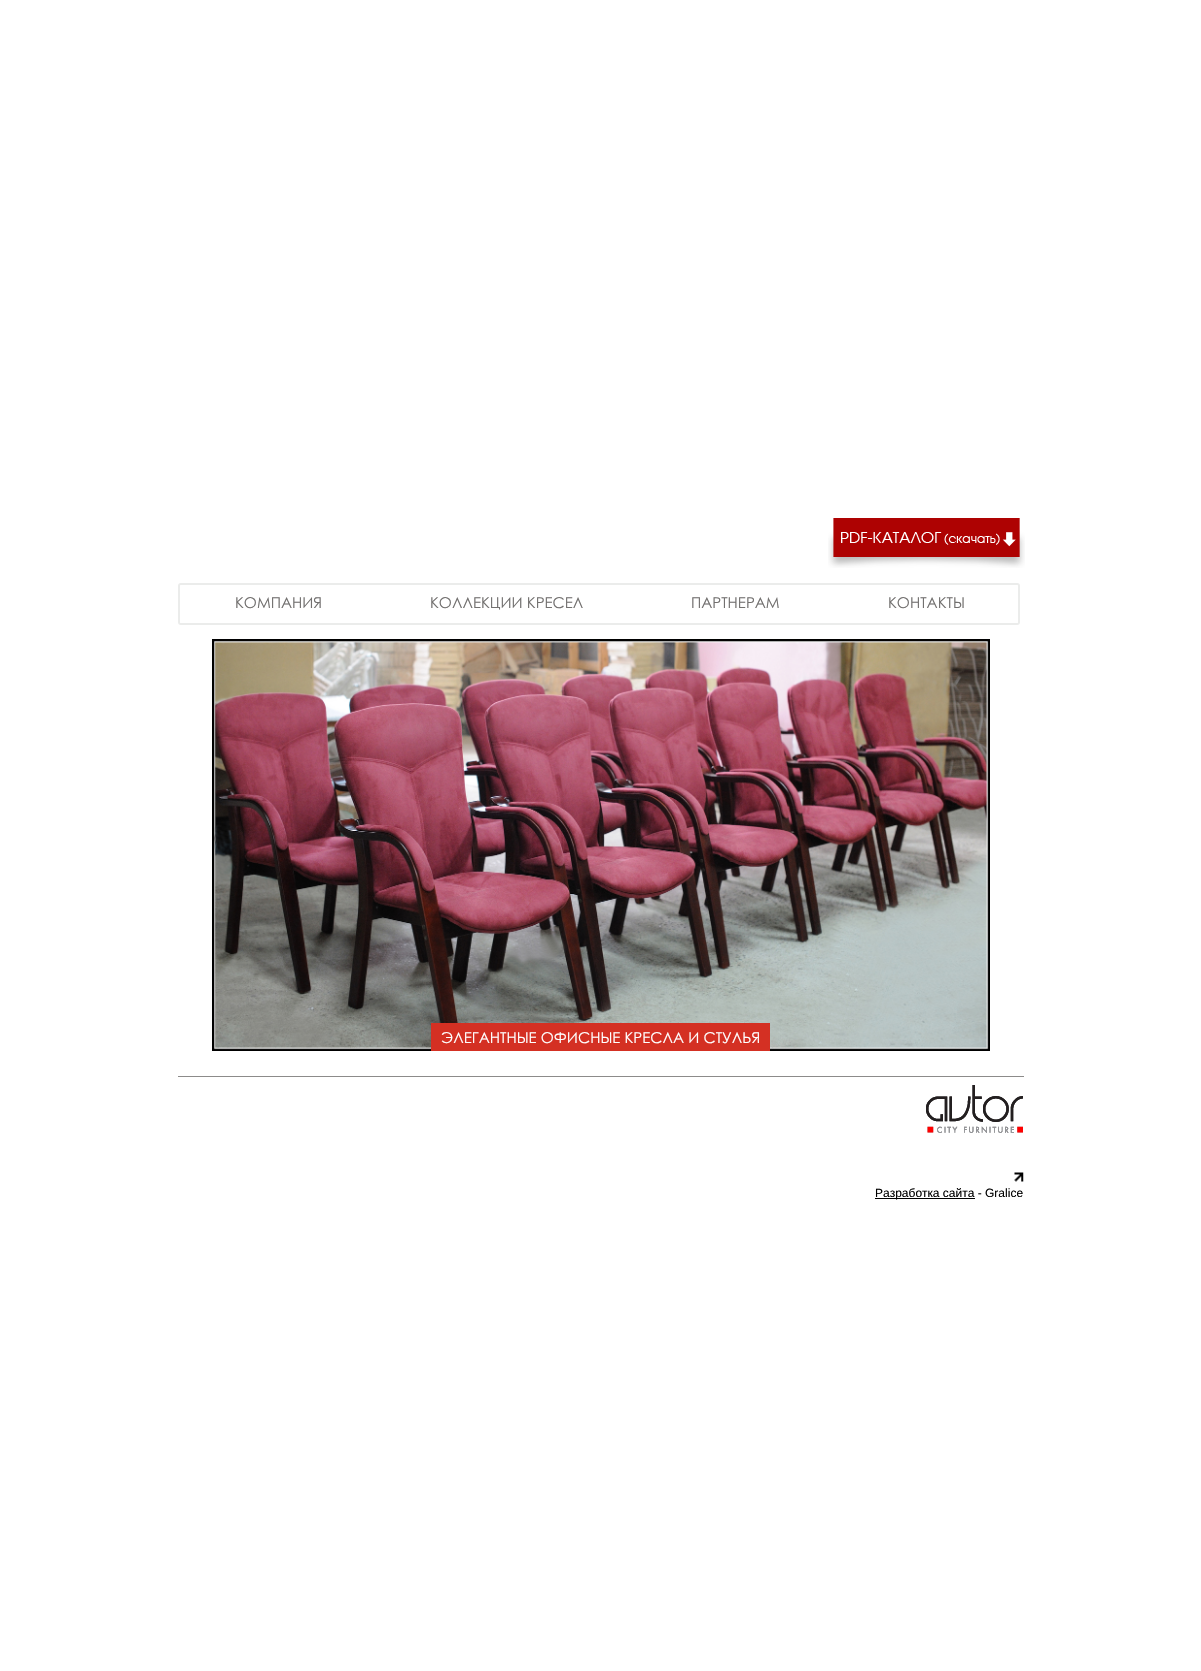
#include "include/core/SkBlurTypes.h"
#include "include/core/SkCanvas.h"
#include "include/core/SkData.h"
#include "include/core/SkFont.h"
#include "include/core/SkFontMgr.h"
#include "include/core/SkImage.h"
#include "include/core/SkMaskFilter.h"
#include "include/core/SkPaint.h"
#include "include/core/SkPathBuilder.h"
#include "include/core/SkTextBlob.h"
#include "include/effects/SkDashPathEffect.h"
#include "include/effects/SkGradientShader.h"
#include "include/utils/SkParsePath.h"

extern sk_sp<SkFontMgr> fontMgr;

void draw(SkCanvas* canvas) {
    SkPaint p;
    p.setAntiAlias(true);
    auto font = [&](const char* family, int weight, float size, bool italic = false) {
        SkFontStyle style(weight, SkFontStyle::kNormal_Width,
            italic ? SkFontStyle::kItalic_Slant : SkFontStyle::kUpright_Slant);
        SkFont result(fontMgr->matchFamilyStyle(family, style), size);
        result.setSubpixel(true);
        return result;
    };
    auto drawPhoto = [&](const char* path, float l, float t, float r, float b) {
        auto image = SkImages::DeferredFromEncodedData(SkData::MakeFromFileName(path));
        canvas->drawImageRect(image, SkRect::MakeLTRB(l, t, r, b), SkSamplingOptions());
    };
    canvas->clear(0xFFFFFFFF);
    drawPhoto("media/1.png", 828, 518, 1025, 568);
    p.setColor(0xFFEBECEB);
    canvas->drawPath(SkPathBuilder(SkPathFillType::kEvenOdd).moveTo(181, 583).lineTo(376, 583).lineTo(376, 625).lineTo(181, 625).cubicTo(179, 625, 178, 624, 178, 622).lineTo(178, 586).cubicTo(178, 584, 179, 583, 181, 583).close().moveTo(181, 585).lineTo(376, 585).lineTo(376, 623).lineTo(181, 623).cubicTo(180, 623, 180, 623, 180, 622).lineTo(180, 586).cubicTo(180, 585, 180, 585, 181, 585).close().detach(), p);
    auto font1 = font("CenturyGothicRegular", 400, 15);
    p.setColor(0xFF72706F);
    canvas->drawString("КОМПАНИЯ", 235, 608, font1, p);
    p.setColor(0xFFEBECEB);
    canvas->drawRect(SkRect::MakeLTRB(376, 583, 834, 585), p);
    canvas->drawRect(SkRect::MakeLTRB(376, 623, 834, 625), p);
    p.setColor(0xFF72706F);
    canvas->drawString("КОЛЛЕКЦИИ КРЕСЕЛ", 430, 608, font1, p);
    canvas->drawString("ПАРТНЕРАМ", 691, 608, font1, p);
    p.setColor(0xFFEBECEB);
    canvas->drawPath(SkPathBuilder(SkPathFillType::kEvenOdd).moveTo(834, 583).lineTo(1017, 583).cubicTo(1019, 583, 1020, 584, 1020, 586).lineTo(1020, 622).cubicTo(1020, 624, 1019, 625, 1017, 625).lineTo(834, 625).close().moveTo(834, 585).lineTo(1017, 585).cubicTo(1018, 585, 1018, 585, 1018, 586).lineTo(1018, 622).cubicTo(1018, 623, 1018, 623, 1017, 623).lineTo(834, 623).close().detach(), p);
    p.setColor(0xFF72706F);
    canvas->drawString("КОНТАКТЫ", 888, 608, font1, p);
    drawPhoto("media/2.png", 212, 639, 990, 1051);
    p.setColor(0xFFD43023);
    canvas->drawRect(SkRect::MakeLTRB(431, 1023, 770, 1051), p);
    p.setColor(0xFFFFFFFF);
    canvas->drawString("ЭЛЕГАНТНЫЕ ОФИСНЫЕ КРЕСЛА И СТУЛЬЯ", 441, 1043, font1, p);
    p.setColor(0xFF8C8B8A);
    canvas->drawRect(SkRect::MakeLTRB(178, 1076, 1024, 1077), p);
    drawPhoto("media/3.png", 926, 1085, 1023, 1133);
    drawPhoto("media/4.png", 1014, 1172, 1024, 1182);
    p.setColor(0xFF000000);
    canvas->drawRect(SkRect::MakeLTRB(875, 1198, 975, 1199), p);
    auto font2 = font("Liberation Sans", 400, 12);
    canvas->drawString("Разработка сайта - Gralice", 875, 1197, font2, p);
}
